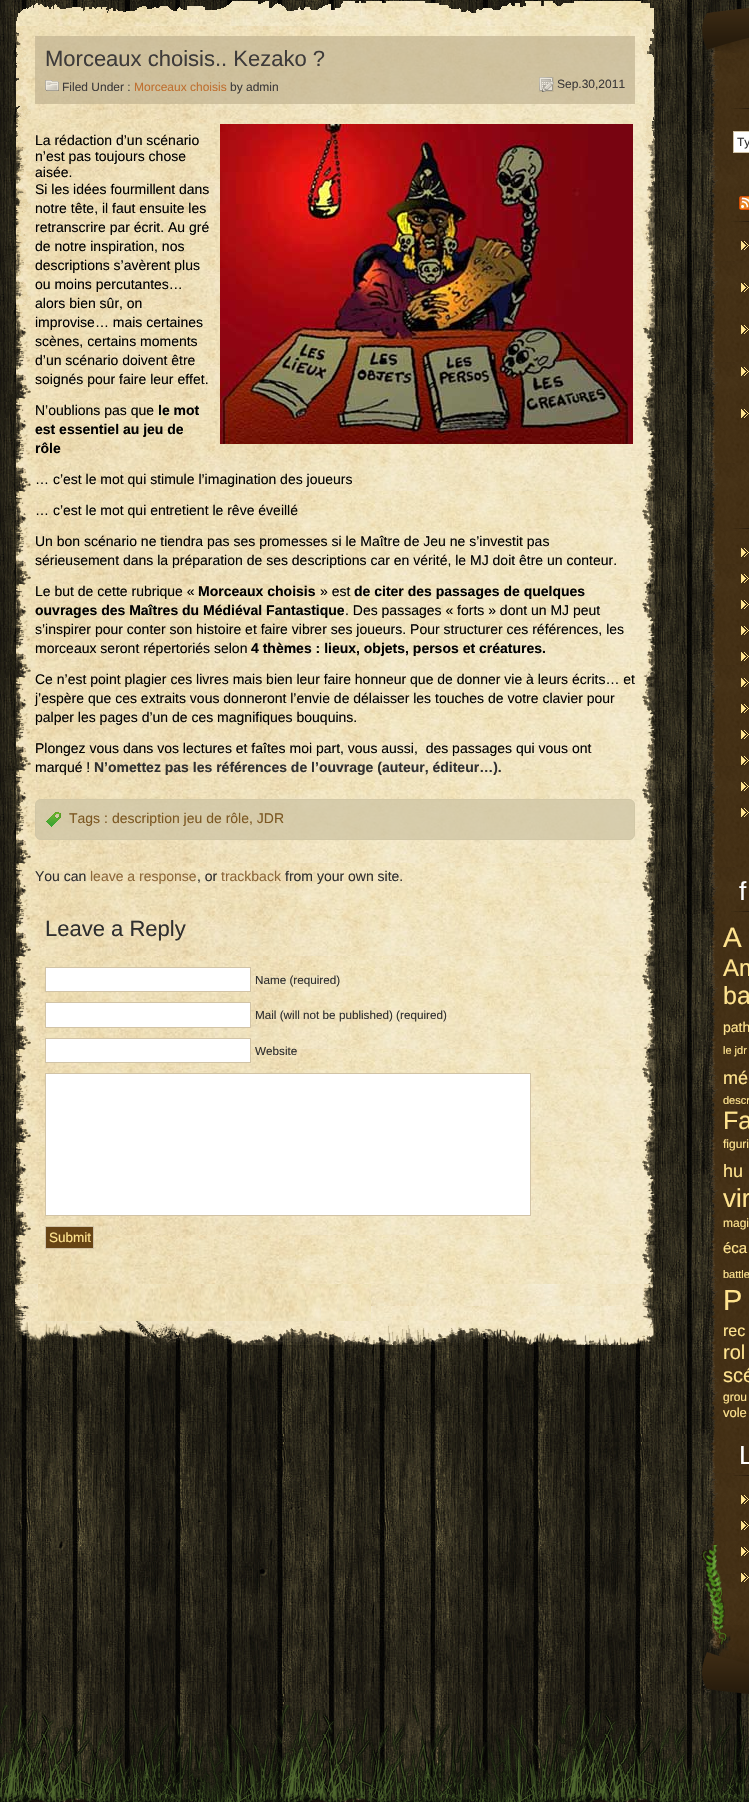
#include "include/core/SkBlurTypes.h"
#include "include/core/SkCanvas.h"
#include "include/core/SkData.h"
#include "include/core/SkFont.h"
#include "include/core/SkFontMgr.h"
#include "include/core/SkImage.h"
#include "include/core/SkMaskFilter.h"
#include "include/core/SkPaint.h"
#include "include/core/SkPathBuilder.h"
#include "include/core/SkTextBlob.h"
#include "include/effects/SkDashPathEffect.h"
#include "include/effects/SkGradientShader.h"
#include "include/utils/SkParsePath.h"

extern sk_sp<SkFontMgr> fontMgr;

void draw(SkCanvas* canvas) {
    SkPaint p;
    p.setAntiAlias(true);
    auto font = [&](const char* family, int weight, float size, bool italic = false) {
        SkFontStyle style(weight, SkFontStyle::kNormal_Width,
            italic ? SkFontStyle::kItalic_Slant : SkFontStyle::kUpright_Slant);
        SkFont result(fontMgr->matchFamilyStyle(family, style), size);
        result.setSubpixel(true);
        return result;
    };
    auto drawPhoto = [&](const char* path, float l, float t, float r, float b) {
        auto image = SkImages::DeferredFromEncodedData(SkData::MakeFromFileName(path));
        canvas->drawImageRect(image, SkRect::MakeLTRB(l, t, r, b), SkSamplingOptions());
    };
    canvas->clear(0xFFFFFFFF);
    drawPhoto("media/1.png", 0, 0, 749, 1802);
    drawPhoto("media/2.png", 16, 1, 655, 328);
    drawPhoto("media/3.png", 16, 110, 655, 328);
    drawPhoto("media/4.png", 16, 26, 655, 1284);
    p.setColor(0xB3C0B290);
    canvas->drawRect(SkRect::MakeLTRB(35, 36, 635, 104), p);
    auto font1 = font("Liberation Sans", 400, 22);
    p.setColor(0xFF3E3B3A);
    canvas->drawString("Morceaux choisis.. Kezako ?", 45, 66, font1, p);
    drawPhoto("media/5.png", 45, 80, 59, 91);
    auto font2 = font("Liberation Sans", 400, 12);
    canvas->drawString("Filed Under :", 62, 91, font2, p);
    p.setColor(0xFFBF7030);
    canvas->drawString("Morceaux choisis", 134, 91, font2, p);
    p.setColor(0xFF3E3B3A);
    canvas->drawString("by admin", 230, 91, font2, p);
    drawPhoto("media/6.png", 539, 77, 554, 92);
    canvas->drawString("Sep.30,2011", 557, 88, font2, p);
    auto font3 = font("Liberation Sans", 400, 14);
    p.setColor(0xFF000000);
    {
        const struct { const char* s; float x, y; } items[] = {
            {"La rédaction d’un scénario", 35, 145},
            {"n’est pas toujours chose", 35, 161},
            {"aisée.", 35, 177},
        };
        for (auto [s, x, y] : items) {
            canvas->drawString(s, x, y, font3, p);
        }
    }
    drawPhoto("media/7.png", 220, 124, 633, 444);
    {
        const struct { const char* s; float x, y; } items[] = {
            {"Si les idées fourmillent dans", 35, 194},
            {"notre tête, il faut ensuite les", 35, 213},
            {"retranscrire par écrit. Au gré", 35, 232},
            {"de notre inspiration, nos", 35, 251},
            {"descriptions s’avèrent plus", 35, 270},
            {"ou moins percutantes…", 35, 289},
            {"alors bien sûr, on", 35, 308},
            {"improvise… mais certaines", 35, 327},
            {"scènes, certains moments", 35, 346},
            {"d’un scénario doivent être", 35, 365},
            {"soignés pour faire leur effet.", 35, 384},
            {"N’oublions pas que", 35, 415},
        };
        for (auto [s, x, y] : items) {
            canvas->drawString(s, x, y, font3, p);
        }
    }
    auto font4 = font("Liberation Sans", 700, 14);
    {
        const struct { const char* s; float x, y; } items[] = {
            {"le mot", 158, 415},
            {"est essentiel au jeu de", 35, 434},
            {"rôle", 35, 453},
        };
        for (auto [s, x, y] : items) {
            canvas->drawString(s, x, y, font4, p);
        }
    }
    {
        const struct { const char* s; float x, y; } items[] = {
            {"… c’est le mot qui stimule l’imagination des joueurs", 35, 484},
            {"… c’est le mot qui entretient le rêve éveillé", 35, 515},
            {"Un bon scénario ne tiendra pas ses promesses si le Maître de Jeu ne s’investit pas", 35, 546},
            {"sérieusement dans la préparation de ses descriptions car en vérité, le MJ doit être un conteur.", 35, 565},
            {"Le but de cette rubrique «", 35, 596},
        };
        for (auto [s, x, y] : items) {
            canvas->drawString(s, x, y, font3, p);
        }
    }
    canvas->drawString("Morceaux choisis", 198, 596, font4, p);
    canvas->drawString("» est", 320, 596, font3, p);
    canvas->drawString("de citer des passages de quelques", 354, 596, font4, p);
    canvas->drawString("ouvrages des Maîtres du Médiéval Fantastique", 35, 615, font4, p);
    {
        const struct { const char* s; float x, y; } items[] = {
            {". Des passages « forts » dont un MJ peut", 345, 615},
            {"s’inspirer pour conter son histoire et faire vibrer ses joueurs. Pour structurer ces références, les", 35, 634},
            {"morceaux seront répertoriés selon", 35, 653},
        };
        for (auto [s, x, y] : items) {
            canvas->drawString(s, x, y, font3, p);
        }
    }
    canvas->drawString("4 thèmes : lieux, objets, persos et créatures.", 251, 653, font4, p);
    {
        const struct { const char* s; float x, y; } items[] = {
            {"Ce n’est point plagier ces livres mais bien leur faire honneur que de donner vie à leurs écrits… et", 35, 684},
            {"j’espère que ces extraits vous donneront l’envie de délaisser les touches de votre clavier pour", 35, 703},
            {"palper les pages d’un de ces magnifiques bouquins.", 35, 722},
            {"Plongez vous dans vos lectures et faîtes moi part, vous aussi,  des passages qui vous ont", 35, 753},
            {"marqué !", 35, 772},
        };
        for (auto [s, x, y] : items) {
            canvas->drawString(s, x, y, font3, p);
        }
    }
    p.setColor(0xFF2F2F2F);
    canvas->drawString("N’omettez pas les références de l’ouvrage (auteur, éditeur…).", 94, 772, font4, p);
    p.setColor(0xCCD0C6A5);
    canvas->drawRoundRect(SkRect::MakeLTRB(35, 799, 635, 840), 6, 6, p);
    p.setStyle(SkPaint::kStroke_Style);
    p.setStrokeWidth(1);
    canvas->drawRoundRect(SkRect::MakeLTRB(35.5f, 799.5f, 634.5f, 839.5f), 5.5f, 5.5f, p);
    drawPhoto("media/8.png", 46, 812, 61, 827);
    p.setStyle(SkPaint::kFill_Style);
    p.setColor(0xFF7C5822);
    {
        const struct { const char* s; float x, y; } items[] = {
            {"Tags :", 69, 823},
            {"description jeu de rôle", 112, 823},
            {", JDR", 249, 823},
        };
        for (auto [s, x, y] : items) {
            canvas->drawString(s, x, y, font3, p);
        }
    }
    p.setColor(0xFF2F2F2F);
    canvas->drawString("You can", 35, 881, font3, p);
    p.setColor(0xFF8C6739);
    canvas->drawString("leave a response", 90, 881, font3, p);
    p.setColor(0xFF2F2F2F);
    canvas->drawString(", or", 197, 881, font3, p);
    p.setColor(0xFF8C6739);
    canvas->drawString("trackback", 221, 881, font3, p);
    p.setColor(0xFF2F2F2F);
    canvas->drawString("from your own site.", 285, 881, font3, p);
    canvas->drawString("Leave a Reply", 45, 936, font1, p);
    p.setColor(0xFFFFFFFF);
    canvas->drawRect(SkRect::MakeLTRB(45.5f, 967.5f, 250.5f, 991.5f), p);
    p.setStyle(SkPaint::kStroke_Style);
    p.setColor(0xFFD1C3A6);
    canvas->drawRect(SkRect::MakeLTRB(45.5f, 967.5f, 250.5f, 991.5f), p);
    auto font5 = font("Liberation Sans", 400, 11.7f);
    p.setStyle(SkPaint::kFill_Style);
    p.setColor(0xFF2F2F2F);
    canvas->drawString("Name (required)", 255, 984, font5, p);
    p.setColor(0xFFFFFFFF);
    canvas->drawRect(SkRect::MakeLTRB(45.5f, 1002.5f, 250.5f, 1027.5f), p);
    p.setStyle(SkPaint::kStroke_Style);
    p.setColor(0xFFD1C3A6);
    canvas->drawRect(SkRect::MakeLTRB(45.5f, 1002.5f, 250.5f, 1027.5f), p);
    p.setStyle(SkPaint::kFill_Style);
    p.setColor(0xFF2F2F2F);
    canvas->drawString("Mail (will not be published) (required)", 255, 1019, font5, p);
    p.setColor(0xFFFFFFFF);
    canvas->drawRect(SkRect::MakeLTRB(45.5f, 1038.5f, 250.5f, 1062.5f), p);
    p.setStyle(SkPaint::kStroke_Style);
    p.setColor(0xFFD1C3A6);
    canvas->drawRect(SkRect::MakeLTRB(45.5f, 1038.5f, 250.5f, 1062.5f), p);
    p.setStyle(SkPaint::kFill_Style);
    p.setColor(0xFF2F2F2F);
    canvas->drawString("Website", 255, 1055, font5, p);
    p.setColor(0xFFFFFFFF);
    canvas->drawRect(SkRect::MakeLTRB(45.5f, 1073.5f, 530.5f, 1215.5f), p);
    p.setStyle(SkPaint::kStroke_Style);
    p.setColor(0xFFD1C3A6);
    canvas->drawRect(SkRect::MakeLTRB(45.5f, 1073.5f, 530.5f, 1215.5f), p);
    p.setStyle(SkPaint::kFill_Style);
    p.setColor(0xFF674415);
    canvas->drawRect(SkRect::MakeLTRB(45.5f, 1226.5f, 93.5f, 1248.5f), p);
    p.setStyle(SkPaint::kStroke_Style);
    p.setColor(0xFFD1C3A6);
    canvas->drawRect(SkRect::MakeLTRB(45.5f, 1226.5f, 93.5f, 1248.5f), p);
    auto font6 = font("Liberation Sans", 400, 13.5f);
    p.setStyle(SkPaint::kFill_Style);
    p.setColor(0xFFFFE38E);
    canvas->drawString("Submit", 49, 1242, font6, p);
    drawPhoto("media/9.png", 15, 1284, 654, 1345);
    drawPhoto("media/10.png", 701, 8, 749, 56);
    drawPhoto("media/11.png", 701, 53, 749, 1625);
    drawPhoto("media/12.png", 731, 108, 749, 109);
    p.setColor(0xFFFFFFFF);
    canvas->drawRect(SkRect::MakeLTRB(733.5f, 131.5f, 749.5f, 152.5f), p);
    p.setStyle(SkPaint::kStroke_Style);
    p.setColor(0xFFD1C3A6);
    canvas->drawRect(SkRect::MakeLTRB(733.5f, 131.5f, 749.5f, 152.5f), p);
    p.setStyle(SkPaint::kFill_Style);
    p.setColor(0xFF2F2F2F);
    canvas->drawString("Ty", 737, 146, font2, p);
    drawPhoto("media/12.png", 731, 221, 749, 222);
    drawPhoto("media/13.png", 739, 196, 749, 210);
    drawPhoto("media/14.png", 741, 241, 749, 250);
    drawPhoto("media/15.png", 741, 283, 749, 292);
    drawPhoto("media/16.png", 741, 325, 749, 334);
    drawPhoto("media/17.png", 741, 367, 749, 376);
    drawPhoto("media/18.png", 741, 409, 749, 418);
    drawPhoto("media/19.png", 733, 528, 749, 529);
    drawPhoto("media/20.png", 741, 548, 749, 557);
    drawPhoto("media/21.png", 741, 574, 749, 583);
    drawPhoto("media/22.png", 741, 600, 749, 609);
    drawPhoto("media/23.png", 741, 626, 749, 635);
    drawPhoto("media/24.png", 741, 652, 749, 661);
    drawPhoto("media/25.png", 741, 678, 749, 687);
    drawPhoto("media/26.png", 741, 704, 749, 713);
    drawPhoto("media/27.png", 741, 730, 749, 739);
    drawPhoto("media/28.png", 741, 756, 749, 765);
    drawPhoto("media/29.png", 741, 782, 749, 791);
    drawPhoto("media/30.png", 741, 808, 749, 817);
    drawPhoto("media/12.png", 731, 911, 749, 912);
    auto font7 = font("Liberation Sans", 400, 26);
    p.setColor(0xFFFFFFFF);
    canvas->drawString("f", 739, 900, font7, p);
    auto font8 = font("Liberation Sans", 400, 28);
    p.setColor(0xFFFFE38E);
    canvas->drawString("A", 723, 947, font8, p);
    auto font9 = font("Liberation Sans", 400, 24);
    canvas->drawString("Am", 723, 976, font9, p);
    auto font10 = font("Liberation Sans", 400, 25);
    canvas->drawString("ba", 723, 1004, font10, p);
    canvas->drawString("path", 723, 1032, font3, p);
    auto font11 = font("Liberation Sans", 400, 11);
    canvas->drawString("le jdr", 723, 1054, font11, p);
    auto font12 = font("Liberation Sans", 400, 18);
    canvas->drawString("mé", 723, 1084, font12, p);
    canvas->drawString("descr", 723, 1104, font11, p);
    canvas->drawString("Fa", 723, 1129, font10, p);
    canvas->drawString("figuri", 723, 1148, font2, p);
    canvas->drawString("hu", 723, 1177, font12, p);
    canvas->drawString("vir", 723, 1207, font7, p);
    canvas->drawString("magi", 723, 1227, font2, p);
    auto font13 = font("Liberation Sans", 400, 15);
    canvas->drawString("éca", 723, 1253, font13, p);
    canvas->drawString("battle", 723, 1278, font11, p);
    auto font14 = font("Liberation Sans", 400, 29);
    canvas->drawString("P", 723, 1310, font14, p);
    auto font15 = font("Liberation Sans", 400, 16);
    canvas->drawString("rec", 723, 1336, font15, p);
    auto font16 = font("Liberation Sans", 400, 20);
    canvas->drawString("rol", 723, 1359, font16, p);
    canvas->drawString("scé", 723, 1382, font16, p);
    canvas->drawString("grou", 723, 1401, font2, p);
    auto font17 = font("Liberation Sans", 400, 13);
    canvas->drawString("vole", 723, 1417, font17, p);
    drawPhoto("media/31.png", 734, 1475, 749, 1476);
    p.setColor(0xFFFFFFFF);
    canvas->drawString("L", 739, 1464, font7, p);
    drawPhoto("media/15.png", 741, 1495, 749, 1504);
    drawPhoto("media/32.png", 741, 1521, 749, 1530);
    drawPhoto("media/32.png", 741, 1547, 749, 1556);
    drawPhoto("media/33.png", 741, 1573, 749, 1582);
    drawPhoto("media/34.png", 701, 1625, 749, 1700);
    drawPhoto("media/35.png", 702, 1545, 727, 1645);
    drawPhoto("media/36.png", 0, 1705, 749, 1802);
}
